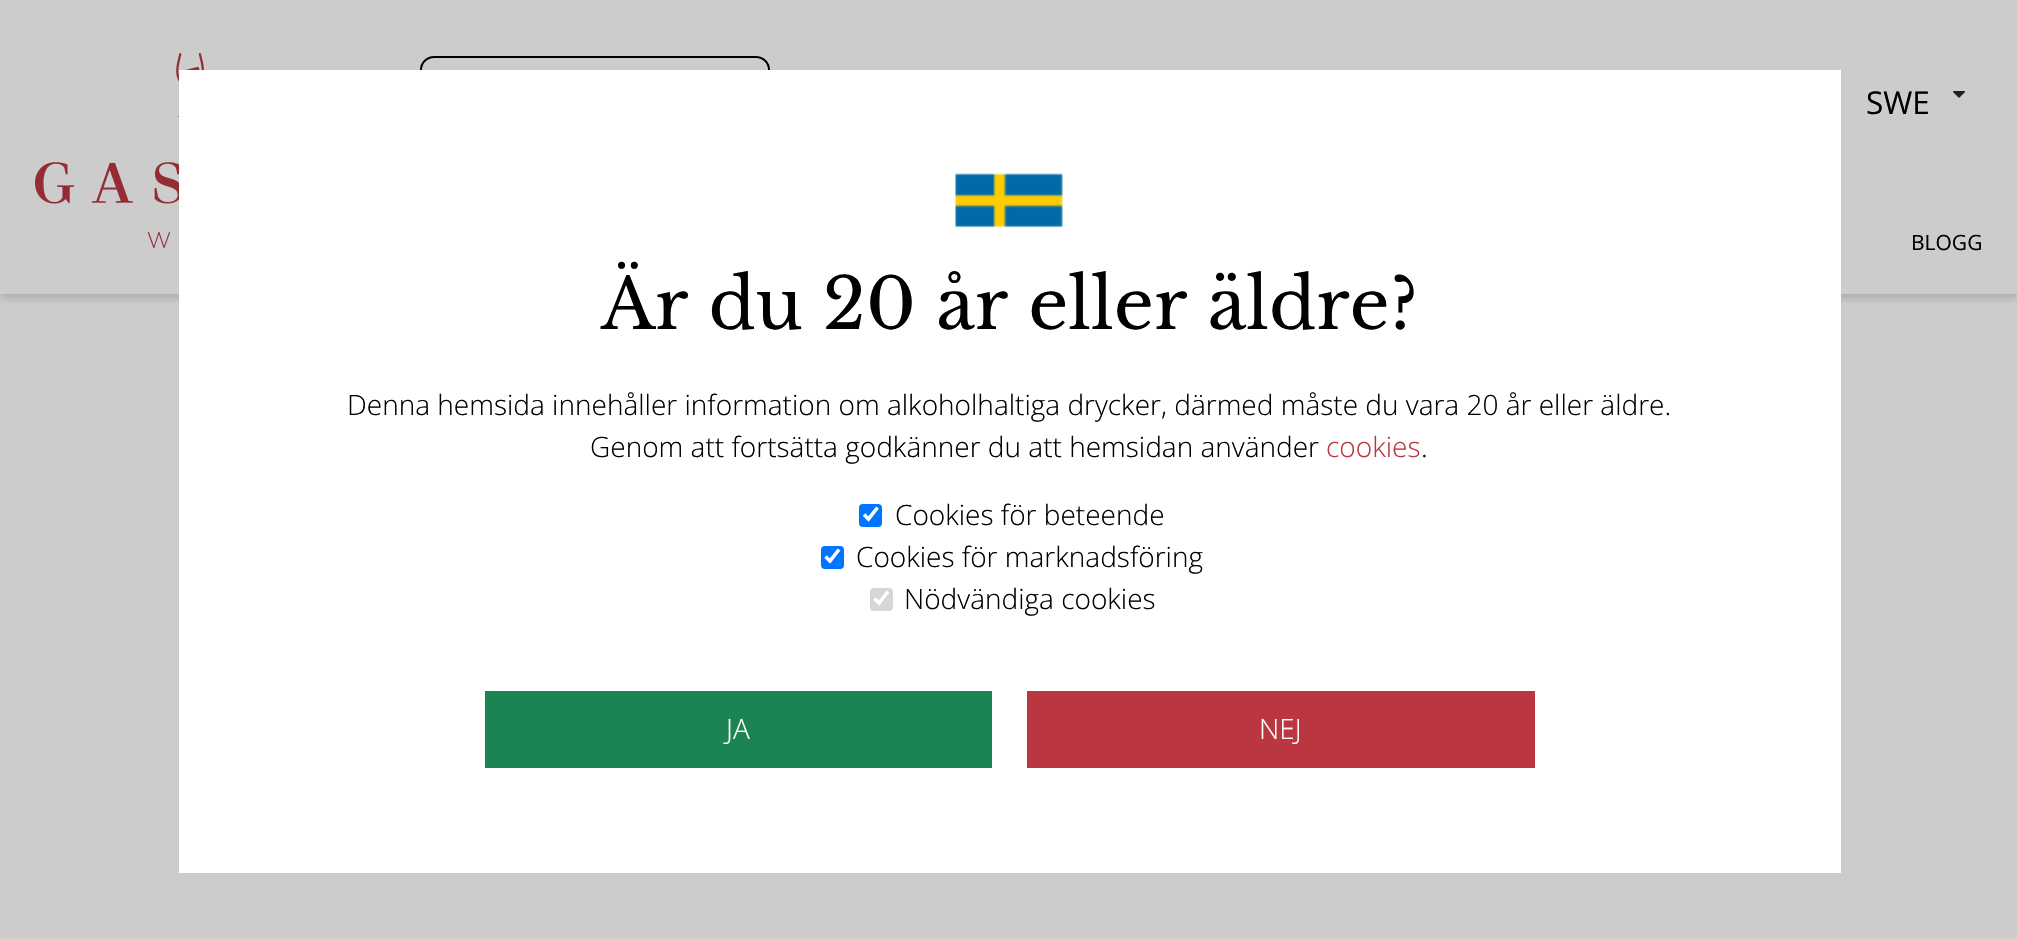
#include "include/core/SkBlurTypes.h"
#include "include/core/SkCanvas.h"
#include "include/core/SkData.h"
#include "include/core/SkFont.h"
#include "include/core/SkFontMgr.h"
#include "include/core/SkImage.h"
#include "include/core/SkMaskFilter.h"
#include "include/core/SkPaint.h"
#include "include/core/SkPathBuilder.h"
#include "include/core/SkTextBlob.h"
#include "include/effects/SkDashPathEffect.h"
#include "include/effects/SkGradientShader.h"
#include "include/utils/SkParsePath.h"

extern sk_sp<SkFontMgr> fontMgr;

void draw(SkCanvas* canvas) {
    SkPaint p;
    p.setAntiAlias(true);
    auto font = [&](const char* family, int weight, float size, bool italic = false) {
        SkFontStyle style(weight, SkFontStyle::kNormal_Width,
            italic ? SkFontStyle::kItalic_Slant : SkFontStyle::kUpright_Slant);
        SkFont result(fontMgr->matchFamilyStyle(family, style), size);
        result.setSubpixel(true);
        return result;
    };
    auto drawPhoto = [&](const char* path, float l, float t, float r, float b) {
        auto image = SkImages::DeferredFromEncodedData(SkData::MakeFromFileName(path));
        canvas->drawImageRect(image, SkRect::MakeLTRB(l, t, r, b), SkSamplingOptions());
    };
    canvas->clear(0xFFCCCCCC);
    canvas->save();
    canvas->clipRect(SkRect::MakeLTRB(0, 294, 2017, 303));
    p.setColor(0x29000000);
    p.setMaskFilter(SkMaskFilter::MakeBlur(kNormal_SkBlurStyle, 4.5f));
    canvas->drawRect(SkRect::MakeLTRB(0, 4, 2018, 298), p);
    p.setMaskFilter(nullptr);
    canvas->restore();
    drawPhoto("media/1.png", 35, 53, 204, 248);
    p.setStyle(SkPaint::kStroke_Style);
    p.setStrokeWidth(2);
    p.setColor(0xFF000000);
    canvas->drawRoundRect(SkRect::MakeLTRB(421, 57, 769, 146), 13, 13, p);
    auto font1 = font("Open Sans", 400, 31.5f);
    p.setStyle(SkPaint::kFill_Style);
    canvas->drawString("SWE", 1866, 114, font1, p);
    drawPhoto("media/2.png", 1953, 91, 1965, 98);
    auto font2 = font("Open Sans", 400, 21);
    canvas->drawString("BLOGG", 1911, 250, font2, p);
    p.setColor(0xFFCCCCCC);
    canvas->drawRect(SkRect::MakeLTRB(1981, 242, 1982, 250), p);
    p.setColor(0xFFFFFFFF);
    canvas->drawRect(SkRect::MakeLTRB(179, 70, 1841, 873), p);
    drawPhoto("media/3.png", 955, 173, 1063, 228);
    auto font3 = font("Libre Baskerville", 400, 70);
    p.setColor(0xFF000000);
    canvas->drawString("Är du 20 år eller äldre?", 601, 329, font3, p);
    auto font4 = font("Open Sans", 300, 28);
    canvas->drawString("Denna hemsida innehåller information om alkoholhaltiga drycker, därmed måste du vara 20 år eller äldre.", 347, 415, font4, p);
    canvas->drawString("Genom att fortsätta godkänner du att hemsidan använder", 590, 457, font4, p);
    p.setColor(0xFFBA3640);
    canvas->drawString("cookies", 1326, 457, font4, p);
    p.setColor(0xFF000000);
    canvas->drawString(".", 1421, 457, font4, p);
    p.setColor(0xFF0075FF);
    canvas->drawRoundRect(SkRect::MakeLTRB(859, 504, 882, 527), 4, 4, p);
    p.setStyle(SkPaint::kStroke_Style);
    p.setStrokeWidth(3.6f);
    p.setColor(0xFFFFFFFF);
    canvas->drawPath(SkPathBuilder().moveTo(864, 514.5f).lineTo(868.5f, 519).lineTo(877.5f, 507.5f).detach(), p);
    p.setStyle(SkPaint::kFill_Style);
    p.setColor(0xFF000000);
    canvas->drawString("Cookies för beteende", 895, 525, font4, p);
    p.setColor(0xFF0075FF);
    canvas->drawRoundRect(SkRect::MakeLTRB(821, 546, 844, 569), 4, 4, p);
    p.setStyle(SkPaint::kStroke_Style);
    p.setColor(0xFFFFFFFF);
    canvas->drawPath(SkPathBuilder().moveTo(825.5f, 556.5f).lineTo(830, 561).lineTo(839, 549.5f).detach(), p);
    p.setStyle(SkPaint::kFill_Style);
    p.setColor(0xFF000000);
    canvas->drawString("Cookies för marknadsföring", 856, 567, font4, p);
    p.setColor(0xFFD6D6D6);
    canvas->drawRoundRect(SkRect::MakeLTRB(870, 588, 893, 611), 4, 4, p);
    p.setStyle(SkPaint::kStroke_Style);
    p.setColor(0xFFFFFFFF);
    canvas->drawPath(SkPathBuilder().moveTo(874.5f, 598.5f).lineTo(879, 603).lineTo(888, 591.5f).detach(), p);
    p.setStyle(SkPaint::kFill_Style);
    p.setColor(0xFF000000);
    canvas->drawString("Nödvändiga cookies", 904, 609, font4, p);
    p.setColor(0xFF1C8452);
    canvas->drawRect(SkRect::MakeLTRB(485, 691, 992, 768), p);
    p.setColor(0xFFFFFFFF);
    canvas->drawString("JA", 726, 739, font4, p);
    p.setColor(0xFFBA3640);
    canvas->drawRect(SkRect::MakeLTRB(1027, 691, 1535, 768), p);
    p.setColor(0xFFFFFFFF);
    canvas->drawString("NEJ", 1259, 739, font4, p);
}
